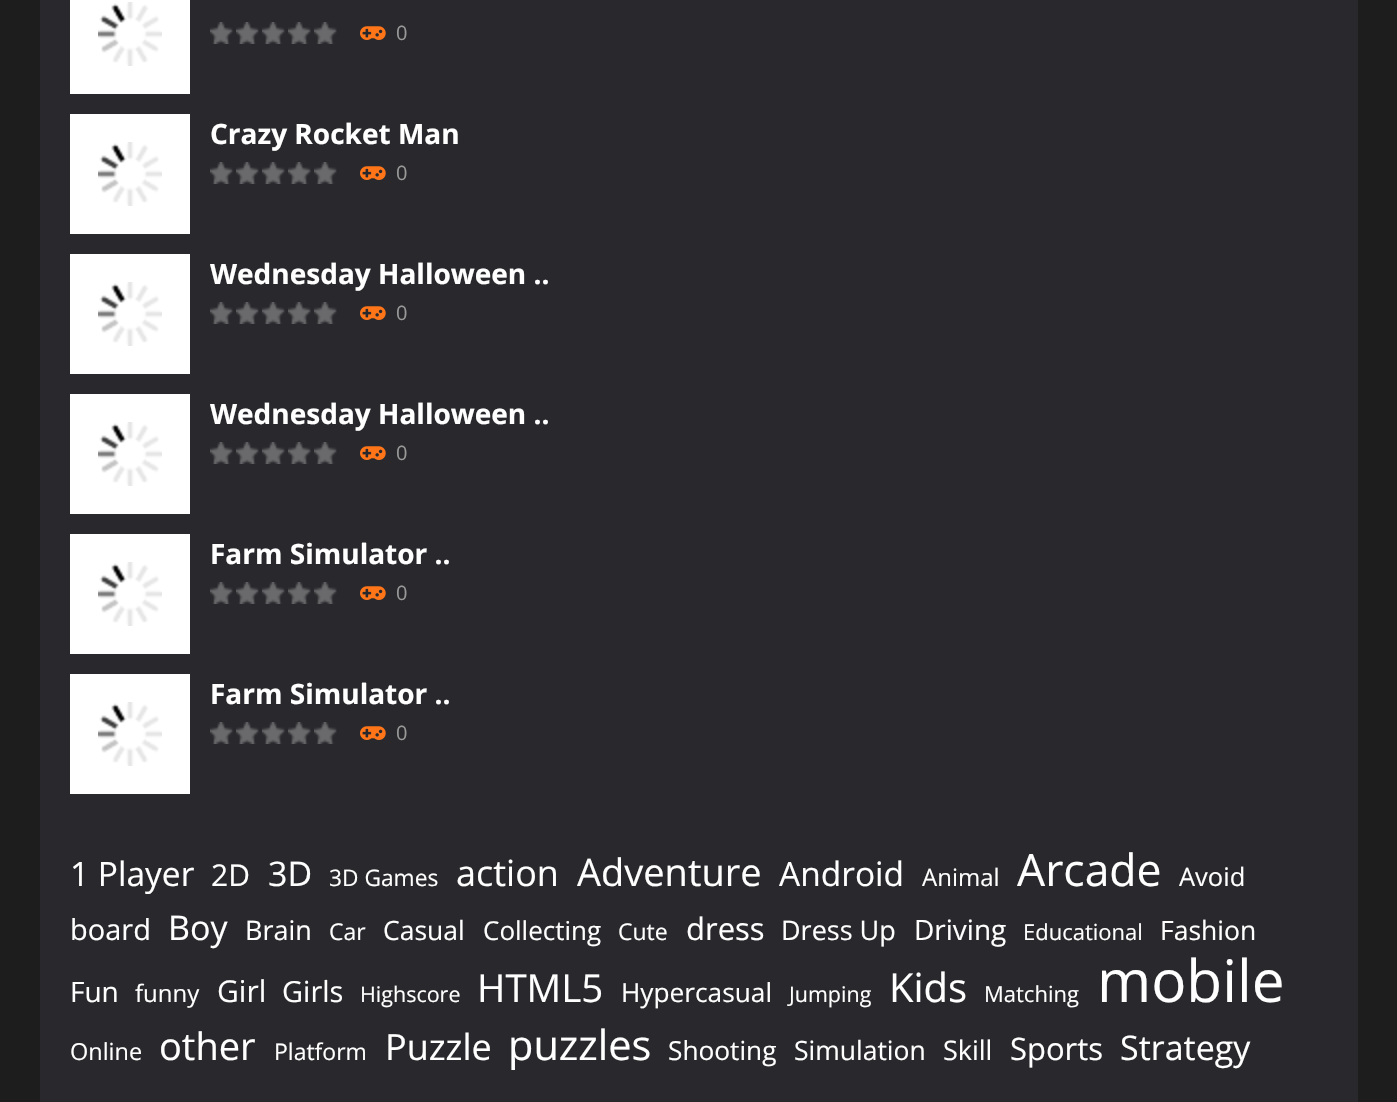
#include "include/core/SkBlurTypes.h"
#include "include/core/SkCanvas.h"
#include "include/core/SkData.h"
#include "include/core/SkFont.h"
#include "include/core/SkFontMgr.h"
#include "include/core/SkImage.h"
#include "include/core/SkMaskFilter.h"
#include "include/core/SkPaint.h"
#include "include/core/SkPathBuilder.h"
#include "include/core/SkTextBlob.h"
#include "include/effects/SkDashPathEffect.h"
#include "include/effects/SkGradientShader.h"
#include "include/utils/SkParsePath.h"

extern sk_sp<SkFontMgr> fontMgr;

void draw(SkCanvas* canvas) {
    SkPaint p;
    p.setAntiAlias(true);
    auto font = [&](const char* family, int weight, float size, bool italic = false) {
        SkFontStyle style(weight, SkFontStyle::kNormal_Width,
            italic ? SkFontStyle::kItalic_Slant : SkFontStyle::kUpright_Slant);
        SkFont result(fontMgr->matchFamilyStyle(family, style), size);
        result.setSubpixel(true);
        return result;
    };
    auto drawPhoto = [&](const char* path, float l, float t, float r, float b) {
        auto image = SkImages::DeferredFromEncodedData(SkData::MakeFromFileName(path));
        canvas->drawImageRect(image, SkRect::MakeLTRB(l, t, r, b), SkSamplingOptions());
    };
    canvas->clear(0xFF1D1D1D);
    p.setColor(0xFF29292D);
    canvas->drawRect(SkRect::MakeLTRB(40, 0, 1358, 1102), p);
    p.setColor(0xFFFFFFFF);
    canvas->drawRect(SkRect::MakeLTRB(70, 0, 190, 94), p);
    drawPhoto("media/1.png", 98, 2, 162, 66);
    drawPhoto("media/2.png", 210, 22, 233, 44);
    drawPhoto("media/2.png", 236, 22, 259, 44);
    drawPhoto("media/2.png", 262, 22, 285, 44);
    drawPhoto("media/2.png", 288, 22, 311, 44);
    drawPhoto("media/2.png", 314, 22, 337, 44);
    drawPhoto("media/3.png", 360, 26, 386, 40);
    auto font1 = font("Open Sans", 400, 20);
    p.setColor(0xFF999999);
    canvas->drawString("0", 396, 40, font1, p);
    p.setColor(0xFFFFFFFF);
    canvas->drawRect(SkRect::MakeLTRB(70, 114, 190, 234), p);
    drawPhoto("media/1.png", 98, 142, 162, 206);
    auto font2 = font("Open Sans", 700, 28);
    canvas->drawString("Crazy Rocket Man", 210, 144, font2, p);
    drawPhoto("media/2.png", 210, 162, 233, 184);
    drawPhoto("media/2.png", 236, 162, 259, 184);
    drawPhoto("media/2.png", 262, 162, 285, 184);
    drawPhoto("media/2.png", 288, 162, 311, 184);
    drawPhoto("media/2.png", 314, 162, 337, 184);
    drawPhoto("media/3.png", 360, 166, 386, 180);
    p.setColor(0xFF999999);
    canvas->drawString("0", 396, 180, font1, p);
    p.setColor(0xFFFFFFFF);
    canvas->drawRect(SkRect::MakeLTRB(70, 254, 190, 374), p);
    drawPhoto("media/1.png", 98, 282, 162, 346);
    canvas->drawString("Wednesday Halloween ..", 210, 284, font2, p);
    drawPhoto("media/2.png", 210, 302, 233, 324);
    drawPhoto("media/2.png", 236, 302, 259, 324);
    drawPhoto("media/2.png", 262, 302, 285, 324);
    drawPhoto("media/2.png", 288, 302, 311, 324);
    drawPhoto("media/2.png", 314, 302, 337, 324);
    drawPhoto("media/3.png", 360, 306, 386, 320);
    p.setColor(0xFF999999);
    canvas->drawString("0", 396, 320, font1, p);
    p.setColor(0xFFFFFFFF);
    canvas->drawRect(SkRect::MakeLTRB(70, 394, 190, 514), p);
    drawPhoto("media/1.png", 98, 422, 162, 486);
    canvas->drawString("Wednesday Halloween ..", 210, 424, font2, p);
    drawPhoto("media/2.png", 210, 442, 233, 464);
    drawPhoto("media/2.png", 236, 442, 259, 464);
    drawPhoto("media/2.png", 262, 442, 285, 464);
    drawPhoto("media/2.png", 288, 442, 311, 464);
    drawPhoto("media/2.png", 314, 442, 337, 464);
    drawPhoto("media/3.png", 360, 446, 386, 460);
    p.setColor(0xFF999999);
    canvas->drawString("0", 396, 460, font1, p);
    p.setColor(0xFFFFFFFF);
    canvas->drawRect(SkRect::MakeLTRB(70, 534, 190, 654), p);
    drawPhoto("media/1.png", 98, 562, 162, 626);
    canvas->drawString("Farm Simulator ..", 210, 564, font2, p);
    drawPhoto("media/2.png", 210, 582, 233, 604);
    drawPhoto("media/2.png", 236, 582, 259, 604);
    drawPhoto("media/2.png", 262, 582, 285, 604);
    drawPhoto("media/2.png", 288, 582, 311, 604);
    drawPhoto("media/2.png", 314, 582, 337, 604);
    drawPhoto("media/3.png", 360, 586, 386, 600);
    p.setColor(0xFF999999);
    canvas->drawString("0", 396, 600, font1, p);
    p.setColor(0xFFFFFFFF);
    canvas->drawRect(SkRect::MakeLTRB(70, 674, 190, 794), p);
    drawPhoto("media/1.png", 98, 702, 162, 766);
    canvas->drawString("Farm Simulator ..", 210, 704, font2, p);
    drawPhoto("media/2.png", 210, 722, 233, 744);
    drawPhoto("media/2.png", 236, 722, 259, 744);
    drawPhoto("media/2.png", 262, 722, 285, 744);
    drawPhoto("media/2.png", 288, 722, 311, 744);
    drawPhoto("media/2.png", 314, 722, 337, 744);
    drawPhoto("media/3.png", 360, 726, 386, 740);
    p.setColor(0xFF999999);
    canvas->drawString("0", 396, 740, font1, p);
    auto font3 = font("Open Sans", 400, 33.5f);
    p.setColor(0xFFFFFFFF);
    canvas->drawString("1 Player", 70, 886, font3, p);
    auto font4 = font("Open Sans", 400, 30);
    canvas->drawString("2D", 211, 886, font4, p);
    auto font5 = font("Open Sans", 400, 34);
    canvas->drawString("3D", 268, 886, font5, p);
    auto font6 = font("Open Sans", 400, 22.75f);
    canvas->drawString("3D Games", 329, 886, font6, p);
    auto font7 = font("Open Sans", 400, 36);
    canvas->drawString("action", 456, 886, font7, p);
    auto font8 = font("Open Sans", 400, 38);
    canvas->drawString("Adventure", 577, 886, font8, p);
    canvas->drawString("Android", 779, 886, font3, p);
    auto font9 = font("Open Sans", 400, 24);
    canvas->drawString("Animal", 922, 886, font9, p);
    auto font10 = font("Open Sans", 400, 44.5f);
    canvas->drawString("Arcade", 1017, 886, font10, p);
    auto font11 = font("Open Sans", 400, 25.5f);
    canvas->drawString("Avoid", 1179, 886, font11, p);
    auto font12 = font("Open Sans", 400, 29);
    canvas->drawString("board", 70, 940, font12, p);
    canvas->drawString("Boy", 168, 940, font5, p);
    auto font13 = font("Open Sans", 400, 27);
    canvas->drawString("Brain", 245, 940, font13, p);
    auto font14 = font("Open Sans", 400, 23);
    canvas->drawString("Car", 329, 940, font14, p);
    auto font15 = font("Open Sans", 400, 26.5f);
    canvas->drawString("Casual", 383, 940, font15, p);
    auto font16 = font("Open Sans", 400, 26);
    canvas->drawString("Collecting", 483, 940, font16, p);
    canvas->drawString("Cute", 618, 940, font14, p);
    auto font17 = font("Open Sans", 400, 31);
    canvas->drawString("dress", 686, 940, font17, p);
    canvas->drawString("Dress Up", 781, 940, font13, p);
    auto font18 = font("Open Sans", 400, 28);
    canvas->drawString("Driving", 914, 940, font18, p);
    auto font19 = font("Open Sans", 400, 22);
    canvas->drawString("Educational", 1023, 940, font19, p);
    canvas->drawString("Fashion", 1160, 940, font15, p);
    canvas->drawString("Fun", 70, 1002, font18, p);
    canvas->drawString("funny", 135, 1002, font9, p);
    canvas->drawString("Girl", 217, 1002, font4, p);
    canvas->drawString("Girls", 282, 1002, font12, p);
    auto font20 = font("Open Sans", 400, 21.5f);
    canvas->drawString("Highscore", 360, 1002, font20, p);
    auto font21 = font("Open Sans", 400, 38.5f);
    canvas->drawString("HTML5", 477, 1002, font21, p);
    auto font22 = font("Open Sans", 400, 26.25f);
    canvas->drawString("Hypercasual", 621, 1002, font22, p);
    canvas->drawString("Jumping", 789, 1002, font20, p);
    auto font23 = font("Open Sans", 400, 40);
    canvas->drawString("Kids", 889, 1002, font23, p);
    canvas->drawString("Matching", 984, 1002, font19, p);
    auto font24 = font("Open Sans", 400, 58.5f);
    canvas->drawString("mobile", 1097, 1002, font24, p);
    auto font25 = font("Open Sans", 400, 23.5f);
    canvas->drawString("Online", 70, 1060, font25, p);
    canvas->drawString("other", 159, 1060, font8, p);
    canvas->drawString("Platform", 274, 1060, font14, p);
    canvas->drawString("Puzzle", 385, 1060, font7, p);
    auto font26 = font("Open Sans", 400, 41.5f);
    canvas->drawString("puzzles", 508, 1060, font26, p);
    canvas->drawString("Shooting", 668, 1060, font22, p);
    canvas->drawString("Simulation", 794, 1060, font15, p);
    canvas->drawString("Skill", 943, 1060, font13, p);
    canvas->drawString("Sports", 1010, 1060, font17, p);
    canvas->drawString("Strategy", 1120, 1060, font5, p);
}
